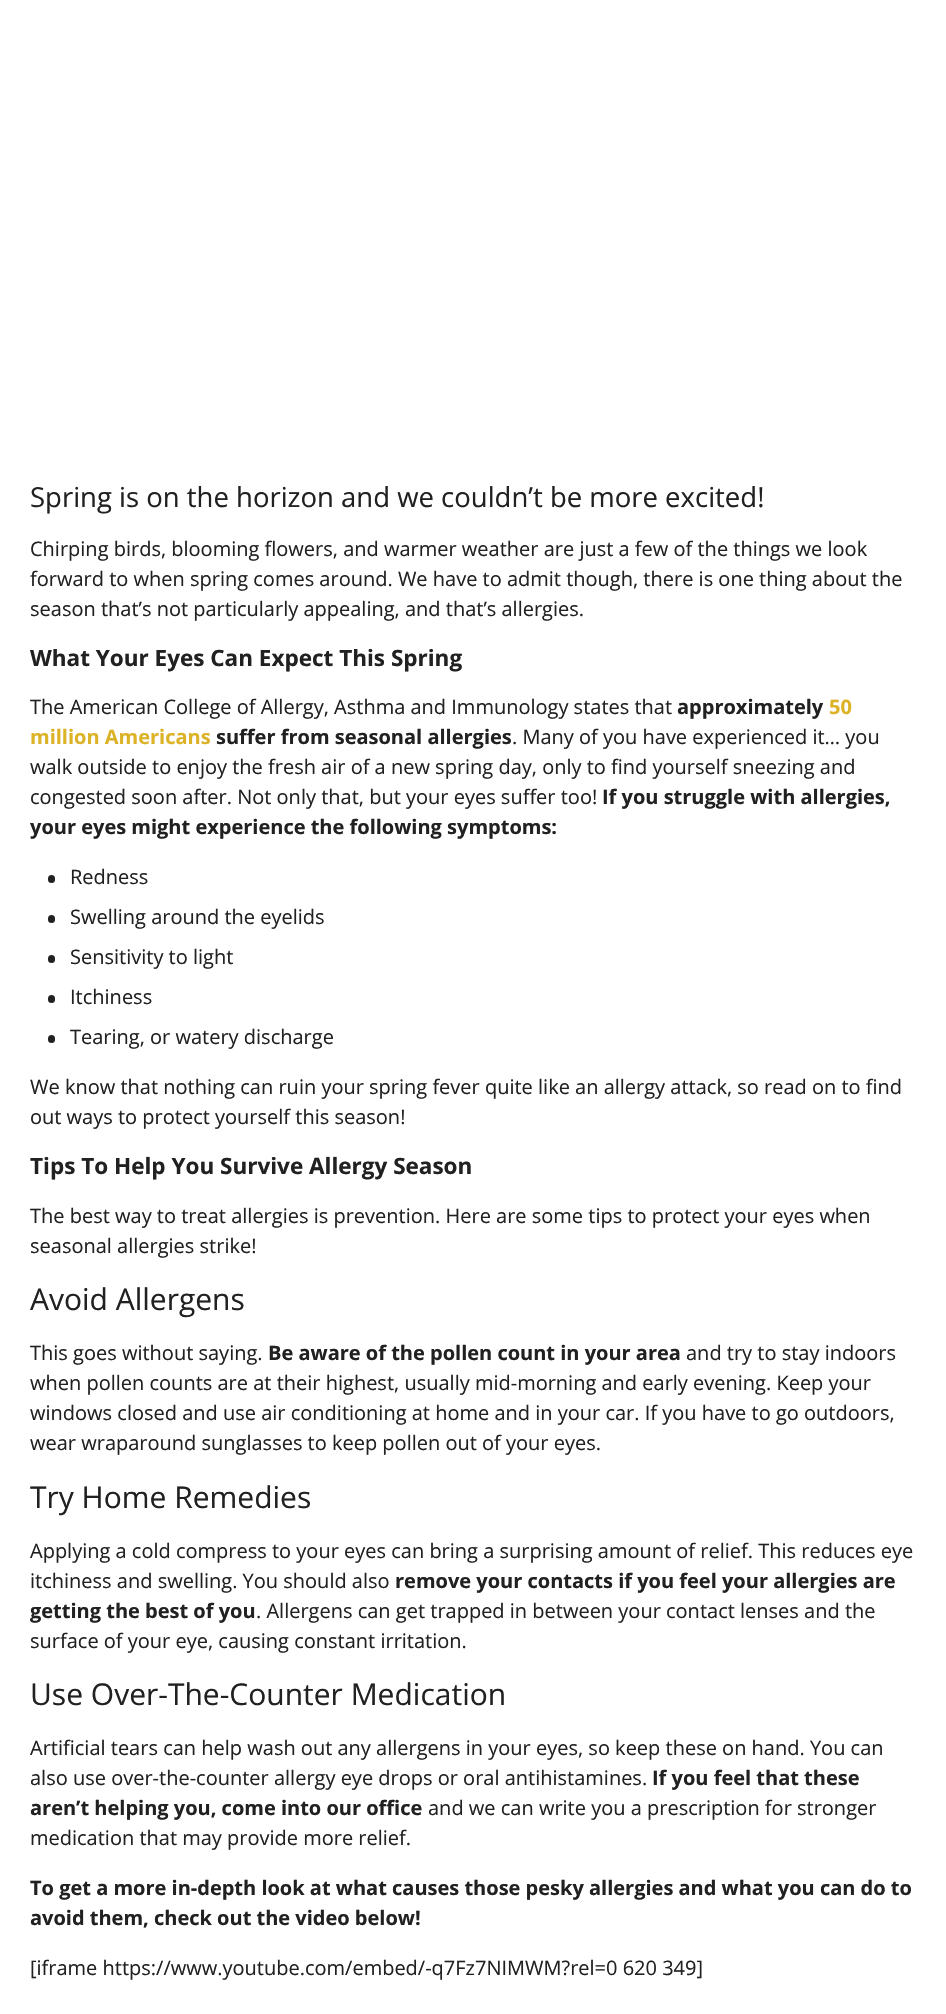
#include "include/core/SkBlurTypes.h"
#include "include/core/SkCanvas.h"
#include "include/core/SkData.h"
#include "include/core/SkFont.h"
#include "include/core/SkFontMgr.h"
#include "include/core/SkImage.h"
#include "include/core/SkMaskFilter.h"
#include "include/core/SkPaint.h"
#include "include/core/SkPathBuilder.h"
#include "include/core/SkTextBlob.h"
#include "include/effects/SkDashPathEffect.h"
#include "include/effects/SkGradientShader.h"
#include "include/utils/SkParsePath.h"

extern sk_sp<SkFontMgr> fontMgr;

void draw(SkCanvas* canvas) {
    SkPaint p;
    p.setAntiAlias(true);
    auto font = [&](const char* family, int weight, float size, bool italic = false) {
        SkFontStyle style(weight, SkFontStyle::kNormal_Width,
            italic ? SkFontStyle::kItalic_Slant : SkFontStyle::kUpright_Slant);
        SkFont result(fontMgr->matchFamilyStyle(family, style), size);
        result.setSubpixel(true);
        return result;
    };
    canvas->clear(0xFFFFFFFF);
    auto font1 = font("Open Sans", 400, 27.5f);
    p.setColor(0xFF212121);
    canvas->drawString("Spring is on the horizon and we couldn’t be more excited!", 30, 507, font1, p);
    auto font2 = font("Open Sans", 400, 20);
    {
        const struct { const char* s; float x, y; } items[] = {
            {"Chirping birds, blooming flowers, and warmer weather are just a few of the things we look", 30, 556},
            {"forward to when spring comes around. We have to admit though, there is one thing about the", 30, 586},
            {"season that’s not particularly appealing, and that’s allergies.", 30, 616},
        };
        for (auto [s, x, y] : items) {
            canvas->drawString(s, x, y, font2, p);
        }
    }
    auto font3 = font("Open Sans", 700, 22.5f);
    canvas->drawString("What Your Eyes Can Expect This Spring", 30, 666, font3, p);
    canvas->drawString("The American College of Allergy, Asthma and Immunology states that", 30, 714, font2, p);
    auto font4 = font("Open Sans", 700, 20);
    canvas->drawString("approximately", 677, 714, font4, p);
    p.setColor(0xFFDCB327);
    canvas->drawString("50", 829, 714, font4, p);
    canvas->drawString("million Americans", 30, 744, font4, p);
    p.setColor(0xFF212121);
    canvas->drawString("suffer from seasonal allergies", 216, 744, font4, p);
    {
        const struct { const char* s; float x, y; } items[] = {
            {". Many of you have experienced it… you", 512, 744},
            {"walk outside to enjoy the fresh air of a new spring day, only to find yourself sneezing and", 30, 774},
            {"congested soon after. Not only that, but your eyes suffer too!", 30, 804},
        };
        for (auto [s, x, y] : items) {
            canvas->drawString(s, x, y, font2, p);
        }
    }
    canvas->drawString("If you struggle with allergies,", 602, 804, font4, p);
    canvas->drawString("your eyes might experience the following symptoms:", 30, 834, font4, p);
    canvas->drawRoundRect(SkRect::MakeLTRB(48, 875, 55, 883), 3.5f, 3.5f, p);
    canvas->drawString("Redness", 70, 884, font2, p);
    canvas->drawRoundRect(SkRect::MakeLTRB(48, 915, 55, 923), 3.5f, 3.5f, p);
    canvas->drawString("Swelling around the eyelids", 70, 924, font2, p);
    canvas->drawRoundRect(SkRect::MakeLTRB(48, 955, 55, 963), 3.5f, 3.5f, p);
    canvas->drawString("Sensitivity to light", 70, 964, font2, p);
    canvas->drawRoundRect(SkRect::MakeLTRB(48, 995, 55, 1003), 3.5f, 3.5f, p);
    canvas->drawString("Itchiness", 70, 1004, font2, p);
    canvas->drawRoundRect(SkRect::MakeLTRB(48, 1035, 55, 1043), 3.5f, 3.5f, p);
    {
        const struct { const char* s; float x, y; } items[] = {
            {"Tearing, or watery discharge", 70, 1044},
            {"We know that nothing can ruin your spring fever quite like an allergy attack, so read on to find", 30, 1094},
            {"out ways to protect yourself this season!", 30, 1124},
        };
        for (auto [s, x, y] : items) {
            canvas->drawString(s, x, y, font2, p);
        }
    }
    canvas->drawString("Tips To Help You Survive Allergy Season", 30, 1174, font3, p);
    canvas->drawString("The best way to treat allergies is prevention. Here are some tips to protect your eyes when", 30, 1223, font2, p);
    canvas->drawString("seasonal allergies strike!", 30, 1253, font2, p);
    auto font5 = font("Open Sans", 400, 30);
    canvas->drawString("Avoid Allergens", 30, 1310, font5, p);
    canvas->drawString("This goes without saying.", 30, 1360, font2, p);
    canvas->drawString("Be aware of the pollen count in your area", 268, 1360, font4, p);
    {
        const struct { const char* s; float x, y; } items[] = {
            {"and try to stay indoors", 686, 1360},
            {"when pollen counts are at their highest, usually mid-morning and early evening. Keep your", 30, 1390},
            {"windows closed and use air conditioning at home and in your car. If you have to go outdoors,", 30, 1420},
            {"wear wraparound sunglasses to keep pollen out of your eyes.", 30, 1450},
        };
        for (auto [s, x, y] : items) {
            canvas->drawString(s, x, y, font2, p);
        }
    }
    canvas->drawString("Try Home Remedies", 30, 1508, font5, p);
    canvas->drawString("Applying a cold compress to your eyes can bring a surprising amount of relief. This reduces eye", 30, 1558, font2, p);
    canvas->drawString("itchiness and swelling. You should also", 30, 1588, font2, p);
    canvas->drawString("remove your contacts if you feel your allergies are", 395, 1588, font4, p);
    canvas->drawString("getting the best of you", 30, 1618, font4, p);
    canvas->drawString(". Allergens can get trapped in between your contact lenses and the", 256, 1618, font2, p);
    canvas->drawString("surface of your eye, causing constant irritation.", 30, 1648, font2, p);
    canvas->drawString("Use Over-The-Counter Medication", 30, 1705, font5, p);
    canvas->drawString("Artificial tears can help wash out any allergens in your eyes, so keep these on hand. You can", 30, 1755, font2, p);
    canvas->drawString("also use over-the-counter allergy eye drops or oral antihistamines.", 30, 1785, font2, p);
    canvas->drawString("If you feel that these", 652, 1785, font4, p);
    canvas->drawString("aren’t helping you, come into our office", 30, 1815, font4, p);
    canvas->drawString("and we can write you a prescription for stronger", 428, 1815, font2, p);
    canvas->drawString("medication that may provide more relief.", 30, 1845, font2, p);
    canvas->drawString("To get a more in-depth look at what causes those pesky allergies and what you can do to", 30, 1895, font4, p);
    canvas->drawString("avoid them, check out the video below!", 30, 1925, font4, p);
    canvas->drawString("[iframe https://www.youtube.com/embed/-q7Fz7NIMWM?rel=0 620 349]", 30, 1975, font2, p);
}
